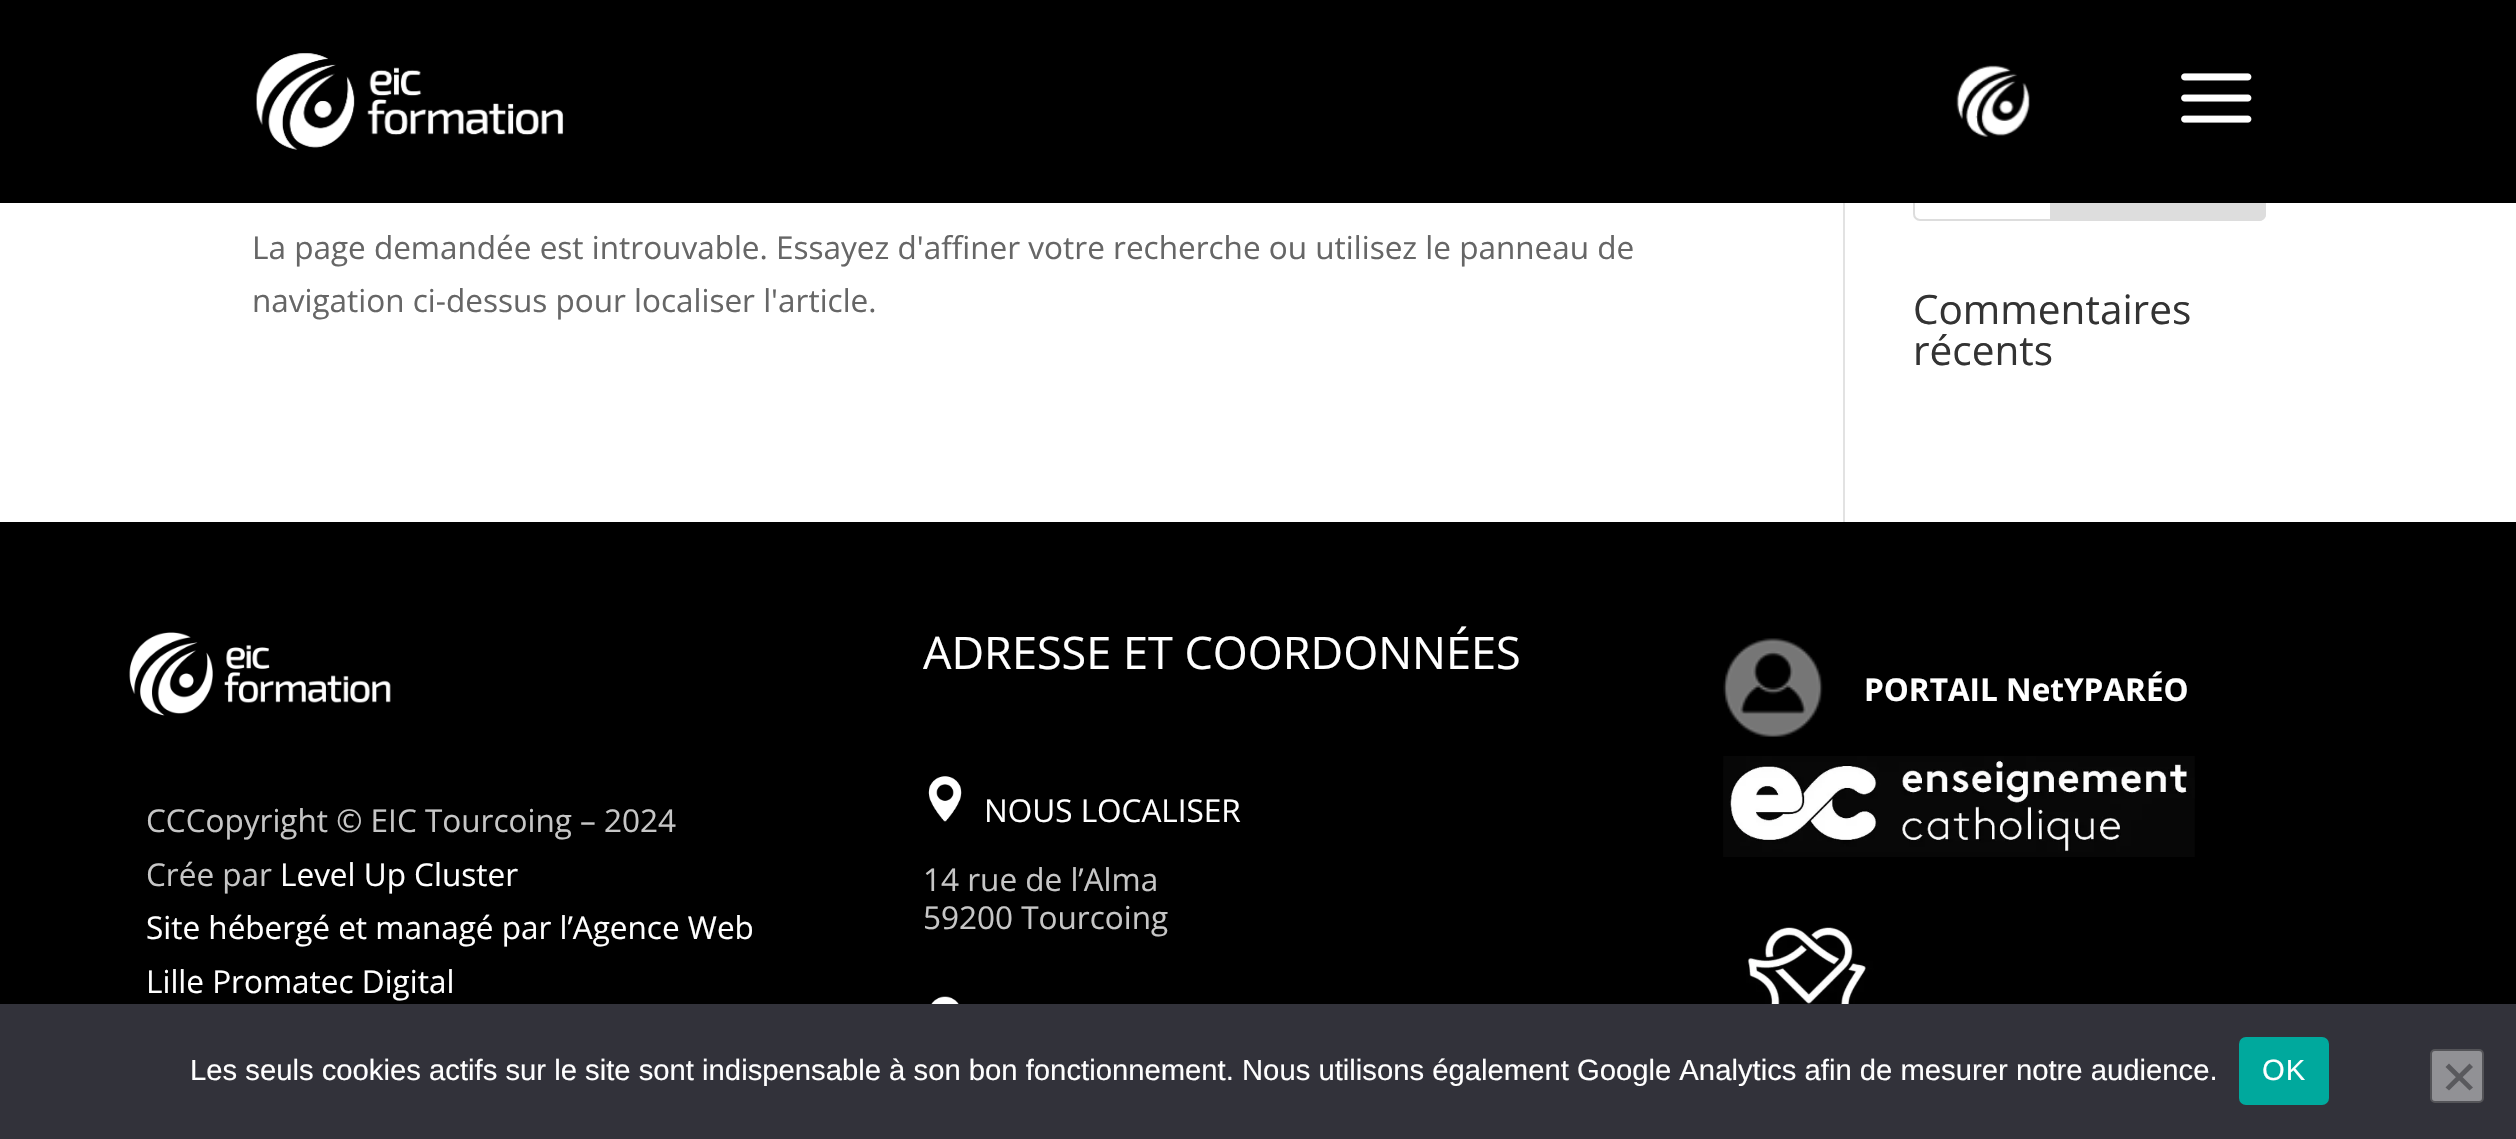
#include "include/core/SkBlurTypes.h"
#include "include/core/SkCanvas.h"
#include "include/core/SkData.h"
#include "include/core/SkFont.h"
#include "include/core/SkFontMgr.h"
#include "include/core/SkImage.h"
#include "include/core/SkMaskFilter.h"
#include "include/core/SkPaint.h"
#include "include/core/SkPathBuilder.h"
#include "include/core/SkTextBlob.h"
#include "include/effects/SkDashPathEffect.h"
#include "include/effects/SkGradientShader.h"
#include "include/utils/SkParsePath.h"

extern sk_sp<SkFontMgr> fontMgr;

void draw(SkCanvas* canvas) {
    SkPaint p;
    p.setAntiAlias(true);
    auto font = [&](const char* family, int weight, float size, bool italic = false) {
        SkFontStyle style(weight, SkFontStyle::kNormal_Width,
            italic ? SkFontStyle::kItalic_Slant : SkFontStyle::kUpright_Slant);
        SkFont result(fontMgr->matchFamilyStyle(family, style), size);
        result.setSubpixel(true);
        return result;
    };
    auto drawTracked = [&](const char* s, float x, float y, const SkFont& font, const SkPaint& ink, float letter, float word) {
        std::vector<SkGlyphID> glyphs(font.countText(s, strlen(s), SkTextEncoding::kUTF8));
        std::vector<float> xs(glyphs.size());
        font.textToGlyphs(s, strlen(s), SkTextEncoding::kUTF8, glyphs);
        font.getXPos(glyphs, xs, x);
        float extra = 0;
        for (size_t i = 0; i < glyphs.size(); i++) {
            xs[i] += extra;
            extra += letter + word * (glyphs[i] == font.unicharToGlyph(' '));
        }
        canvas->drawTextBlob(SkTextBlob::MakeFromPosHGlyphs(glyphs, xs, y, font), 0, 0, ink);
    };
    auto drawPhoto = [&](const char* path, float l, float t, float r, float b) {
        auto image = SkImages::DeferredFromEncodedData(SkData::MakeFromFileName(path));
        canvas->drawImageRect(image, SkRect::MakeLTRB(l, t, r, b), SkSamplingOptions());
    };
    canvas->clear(0xFF000000);
    p.setColor(0xFFFFFFFF);
    canvas->drawRect(SkRect::MakeLTRB(0, 203, 2516, 522), p);
    p.setStyle(SkPaint::kStroke_Style);
    p.setStrokeWidth(2);
    p.setColor(0xFFDDDDDD);
    canvas->drawRoundRect(SkRect::MakeLTRB(1914, 132, 2265, 220), 6, 6, p);
    p.setStyle(SkPaint::kFill_Style);
    canvas->drawPath(SkPathBuilder().moveTo(2051, 132).lineTo(2259, 132).cubicTo(2262.5f, 132, 2265, 134.5f, 2265, 138).lineTo(2265, 214).cubicTo(2265, 217.5f, 2262.5f, 220, 2259, 220).lineTo(2051, 220).close().detach(), p);
    p.setStyle(SkPaint::kStroke_Style);
    canvas->drawPath(SkPathBuilder().moveTo(2051, 132).lineTo(2259, 132).cubicTo(2262.5f, 132, 2265, 134.5f, 2265, 138).lineTo(2265, 214).cubicTo(2265, 217.5f, 2262.5f, 220, 2259, 220).lineTo(2051, 220).close().detach(), p);
    p.setStyle(SkPaint::kFill_Style);
    p.setColor(0xFF000000);
    canvas->drawRect(SkRect::MakeLTRB(1913, 131, 2266, 203), p);
    drawPhoto("media/1.png", 256, 53, 564, 150);
    drawPhoto("media/2.png", 1956, 65, 2030, 137);
    drawPhoto("media/3.png", 2181, 73, 2252, 123);
    p.setColor(0xFFE2E2E2);
    canvas->drawRect(SkRect::MakeLTRB(1843, 203, 1845, 522), p);
    auto font1 = font("Open Sans", 400, 31.5f);
    p.setColor(0xFF666666);
    canvas->drawString("La page demandée est introuvable. Essayez d'affiner votre recherche ou utilisez le panneau de", 252, 259, font1, p);
    canvas->drawString("navigation ci-dessus pour localiser l'article.", 252, 312, font1, p);
    auto font2 = font("Open Sans", 400, 40.5f);
    p.setColor(0xFF333333);
    canvas->drawString("Commentaires", 1913, 324, font2, p);
    canvas->drawString("récents", 1913, 365, font2, p);
    auto font3 = font("Open Sans", 400, 45);
    p.setColor(0xFFFFFFFF);
    canvas->drawString("ADRESSE ET COORDONNÉES", 923, 669, font3, p);
    drawPhoto("media/4.png", 928, 776, 962, 822);
    canvas->drawString("NOUS LOCALISER", 984, 822, font1, p);
    p.setColor(0xFFC6C6C6);
    canvas->drawString("14 rue de l’Alma", 923, 891, font1, p);
    canvas->drawString("59200 Tourcoing", 923, 929, font1, p);
    drawPhoto("media/5.png", 931, 996, 959, 1004);
    drawPhoto("media/6.png", 1723, 638, 1823, 737);
    auto font4 = font("Open Sans", 700, 31.5f);
    p.setColor(0xFFFFFFFF);
    canvas->drawString("PORTAIL NetYPARÉO", 1864, 701, font4, p);
    drawPhoto("media/7.png", 1723, 756, 2195, 857);
    drawPhoto("media/8.png", 1728, 927, 1889, 1004);
    drawPhoto("media/9.png", 129, 632, 391, 716);
    p.setColor(0xFFC6C6C6);
    canvas->drawString("CCCopyright © EIC Tourcoing – 2024", 146, 832, font1, p);
    canvas->drawString("Crée par", 146, 886, font1, p);
    p.setColor(0xFFFFFFFF);
    {
        const struct { const char* s; float x, y; } items[] = {
            {"Level Up Cluster", 280, 886},
            {"Site hébergé et managé par l’Agence Web", 146, 939},
            {"Lille Promatec Digital", 146, 993},
        };
        for (auto [s, x, y] : items) {
            canvas->drawString(s, x, y, font1, p);
        }
    }
    p.setColor(0xFF32323A);
    canvas->drawRect(SkRect::MakeLTRB(0, 1004, 2516, 1139), p);
    auto font5 = font("Liberation Sans", 400, 29.25f);
    p.setColor(0xFFFFFFFF);
    canvas->drawString("Les seuls cookies actifs sur le site sont indispensable à son bon fonctionnement. Nous utilisons également Google Analytics afin de mesurer notre audience.", 190, 1080, font5, p);
    p.setColor(0xFF00A99D);
    canvas->drawRoundRect(SkRect::MakeLTRB(2239, 1037, 2329, 1105), 7, 7, p);
    p.setColor(0xFFFFFFFF);
    drawTracked("OK", 2262, 1080, font5, p, 1, 0);
    p.setColor(0xFF919195);
    canvas->drawRoundRect(SkRect::MakeLTRB(2431, 1050, 2483, 1102), 4, 4, p);
    p.setStyle(SkPaint::kStroke_Style);
    p.setColor(0xFF545458);
    canvas->drawRoundRect(SkRect::MakeLTRB(2431, 1050, 2483, 1102), 4, 4, p);
    p.setStyle(SkPaint::kFill_Style);
    p.setColor(0xFF59595D);
    canvas->drawPath(SkPathBuilder().moveTo(2469.5f, 1063.5f).lineTo(2473, 1067).lineTo(2449, 1090.5f).lineTo(2445.5f, 1087.5f).close().detach(), p);
    canvas->drawPath(SkPathBuilder().moveTo(2445.5f, 1067).lineTo(2449, 1063.5f).lineTo(2473, 1087.5f).lineTo(2469.5f, 1090.5f).close().detach(), p);
}
